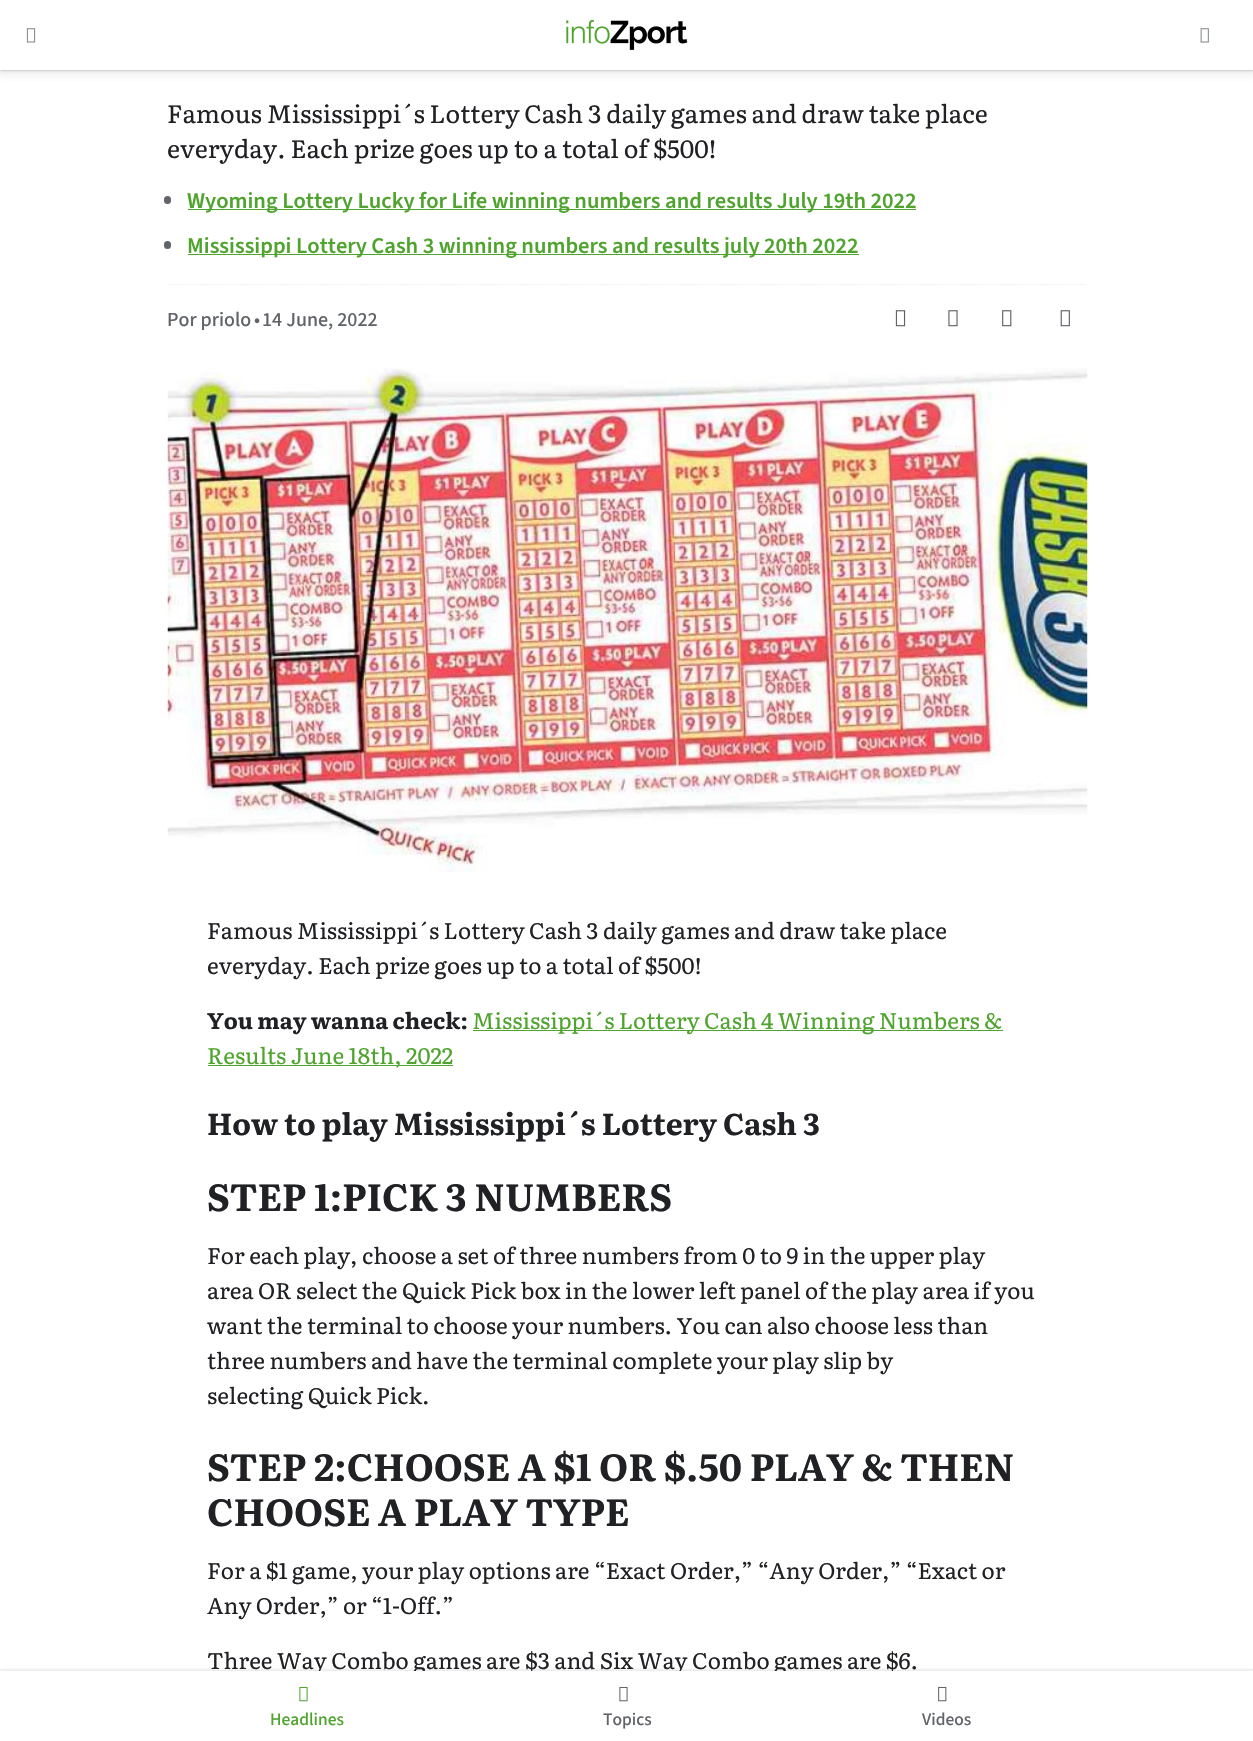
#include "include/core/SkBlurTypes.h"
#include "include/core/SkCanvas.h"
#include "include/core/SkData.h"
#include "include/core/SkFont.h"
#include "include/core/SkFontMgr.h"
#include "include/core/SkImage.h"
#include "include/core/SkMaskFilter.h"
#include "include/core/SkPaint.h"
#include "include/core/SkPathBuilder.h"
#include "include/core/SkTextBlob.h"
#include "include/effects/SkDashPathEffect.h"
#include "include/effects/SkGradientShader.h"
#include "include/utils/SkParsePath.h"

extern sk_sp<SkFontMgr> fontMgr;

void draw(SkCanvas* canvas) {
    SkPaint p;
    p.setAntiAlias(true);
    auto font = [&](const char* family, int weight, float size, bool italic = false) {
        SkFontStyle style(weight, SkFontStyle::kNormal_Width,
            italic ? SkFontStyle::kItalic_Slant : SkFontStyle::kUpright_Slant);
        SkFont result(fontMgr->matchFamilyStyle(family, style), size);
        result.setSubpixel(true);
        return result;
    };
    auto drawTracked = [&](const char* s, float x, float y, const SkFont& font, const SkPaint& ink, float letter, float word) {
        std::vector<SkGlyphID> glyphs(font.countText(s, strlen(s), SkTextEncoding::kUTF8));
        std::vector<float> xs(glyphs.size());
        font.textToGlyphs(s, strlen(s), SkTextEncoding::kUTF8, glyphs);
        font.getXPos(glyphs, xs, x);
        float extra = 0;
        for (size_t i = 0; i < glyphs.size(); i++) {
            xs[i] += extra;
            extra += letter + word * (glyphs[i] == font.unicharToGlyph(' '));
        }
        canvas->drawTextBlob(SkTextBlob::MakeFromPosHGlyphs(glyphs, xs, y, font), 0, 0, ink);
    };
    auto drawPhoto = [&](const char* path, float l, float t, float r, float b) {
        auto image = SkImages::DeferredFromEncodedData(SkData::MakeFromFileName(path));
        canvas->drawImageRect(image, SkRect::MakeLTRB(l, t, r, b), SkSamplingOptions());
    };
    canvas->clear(0xFFFFFFFF);
    p.setColor(0x1A3C4043);
    p.setMaskFilter(SkMaskFilter::MakeBlur(kNormal_SkBlurStyle, 4));
    canvas->drawRect(SkRect::MakeLTRB(-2, 0, 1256, 75), p);
    p.setMaskFilter(nullptr);
    p.setColor(0x333C4043);
    p.setMaskFilter(SkMaskFilter::MakeBlur(kNormal_SkBlurStyle, 1));
    canvas->drawRect(SkRect::MakeLTRB(0, 1, 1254, 71), p);
    p.setMaskFilter(nullptr);
    p.setColor(0xFFFFFFFF);
    canvas->drawRect(SkRect::MakeLTRB(0, 0, 1253, 70), p);
    drawPhoto("media/1.png", 566, 20, 688, 50);
    drawPhoto("media/2.png", 26, 28, 36, 43);
    drawPhoto("media/3.png", 1200, 28, 1209, 43);
    auto font1 = font("Literata", 400, 25);
    p.setColor(0xFF202124);
    drawTracked("Famous Mississippi´s Lottery Cash 3 daily games and draw take place", 167, 123, font1, p, 0, -0.25f);
    canvas->drawString("everyday. Each prize goes up to a total of $500!", 167, 158, font1, p);
    p.setStyle(SkPaint::kStroke_Style);
    p.setStrokeWidth(1.2f);
    p.setColor(0xFFE8EAEC);
    p.setPathEffect(SkDashPathEffect::Make({{1.25f, 1.25f}}, 0));
    canvas->drawPath(SkPathBuilder().moveTo(167.5f, 284.5f).lineTo(1087.5f, 284.5f).detach(), p);
    p.setPathEffect(nullptr);
    p.setStyle(SkPaint::kFill_Style);
    p.setColor(0xFF606368);
    canvas->drawRoundRect(SkRect::MakeLTRB(164, 196, 171, 204), 3.5f, 3.5f, p);
    p.setColor(0xFF4FA42E);
    canvas->drawRect(SkRect::MakeLTRB(188, 209, 916, 210), p);
    auto font2 = font("Source Sans 3", 600, 22.5f);
    canvas->drawString("Wyoming Lottery Lucky for Life winning numbers and results July 19th 2022", 187, 208, font2, p);
    p.setColor(0xFF606368);
    canvas->drawRoundRect(SkRect::MakeLTRB(164, 241, 171, 249), 3.5f, 3.5f, p);
    p.setColor(0xFF4FA42E);
    canvas->drawRect(SkRect::MakeLTRB(188, 254, 859, 255), p);
    canvas->drawString("Mississippi Lottery Cash 3 winning numbers and results july 20th 2022", 187, 253, font2, p);
    auto font3 = font("Source Sans 3", 500, 20);
    p.setColor(0xFF606368);
    canvas->drawString("Por priolo", 167, 326, font3, p);
    auto font4 = font("Source Sans 3", 400, 20);
    canvas->drawString("•", 254, 326, font4, p);
    canvas->drawString("14 June, 2022", 262, 326, font3, p);
    drawPhoto("media/4.png", 895, 310, 906, 327);
    drawPhoto("media/5.png", 948, 310, 958, 327);
    drawPhoto("media/6.png", 1002, 310, 1012, 327);
    drawPhoto("media/7.png", 1060, 310, 1070, 327);
    drawPhoto("media/8.png", 167, 368, 1088, 872);
    auto font5 = font("Literata", 400, 22.5f);
    p.setColor(0xFF202124);
    drawTracked("Famous Mississippi´s Lottery Cash 3 daily games and draw take place", 207, 939, font5, p, 0, -0.1f);
    canvas->drawString("everyday. Each prize goes up to a total of $500!", 207, 974, font5, p);
    auto font6 = font("Literata", 700, 22.5f);
    drawTracked("You may wanna check:", 207, 1029, font6, p, 0, -0.25f);
    p.setColor(0xFF4FA42E);
    canvas->drawRect(SkRect::MakeLTRB(473, 1030, 1003, 1031), p);
    drawTracked("Mississippi´s Lottery Cash 4 Winning Numbers &", 472, 1029, font5, p, 0, -0.25f);
    canvas->drawRect(SkRect::MakeLTRB(208, 1065, 453, 1066), p);
    canvas->drawString("Results June 18th, 2022", 207, 1064, font5, p);
    auto font7 = font("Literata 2", 700, 30);
    p.setColor(0xFF202124);
    canvas->drawString("How to play Mississippi´s Lottery Cash 3", 207, 1135, font7, p);
    auto font8 = font("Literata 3", 700, 37.5f);
    canvas->drawString("STEP 1:PICK 3 NUMBERS", 207, 1211, font8, p);
    canvas->drawString("For each play, choose a set of three numbers from 0 to 9 in the upper play", 207, 1264, font5, p);
    canvas->drawString("area OR select the Quick Pick box in the lower left panel of the play area if you", 207, 1299, font5, p);
    drawTracked("want the terminal to choose your numbers. You can also choose less than", 207, 1334, font5, p, 0, -0.1f);
    drawTracked("three numbers and have the terminal complete your play slip by", 207, 1369, font5, p, 0, -0.1f);
    canvas->drawString("selecting Quick Pick.", 207, 1404, font5, p);
    canvas->drawString("STEP 2:CHOOSE A $1 OR $.50 PLAY & THEN", 207, 1481, font8, p);
    canvas->drawString("CHOOSE A PLAY TYPE", 207, 1526, font8, p);
    canvas->drawString("For a $1 game, your play options are “Exact Order,” “Any Order,” “Exact or", 207, 1579, font5, p);
    drawTracked("Any Order,” or “1-Off.”", 207, 1614, font5, p, 0, -0.25f);
    canvas->drawString("Three Way Combo games are $3 and Six Way Combo games are $6.", 207, 1669, font5, p);
    p.setColor(0x1A3A3A3A);
    p.setMaskFilter(SkMaskFilter::MakeBlur(kNormal_SkBlurStyle, 1));
    canvas->drawRect(SkRect::MakeLTRB(0, 1669, 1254, 1739), p);
    p.setMaskFilter(nullptr);
    p.setColor(0xFFFFFFFF);
    canvas->drawRect(SkRect::MakeLTRB(0, 1671, 1253, 1740), p);
    drawPhoto("media/9.png", 299, 1686, 308, 1702);
    auto font9 = font("Source Sans 3", 500, 17.5f);
    p.setColor(0xFF4FA42E);
    canvas->drawString("Headlines", 270, 1725, font9, p);
    drawPhoto("media/10.png", 619, 1686, 628, 1702);
    p.setColor(0xFF606368);
    canvas->drawString("Topics", 603, 1725, font9, p);
    drawPhoto("media/11.png", 938, 1686, 947, 1702);
    canvas->drawString("Videos", 922, 1725, font9, p);
}
